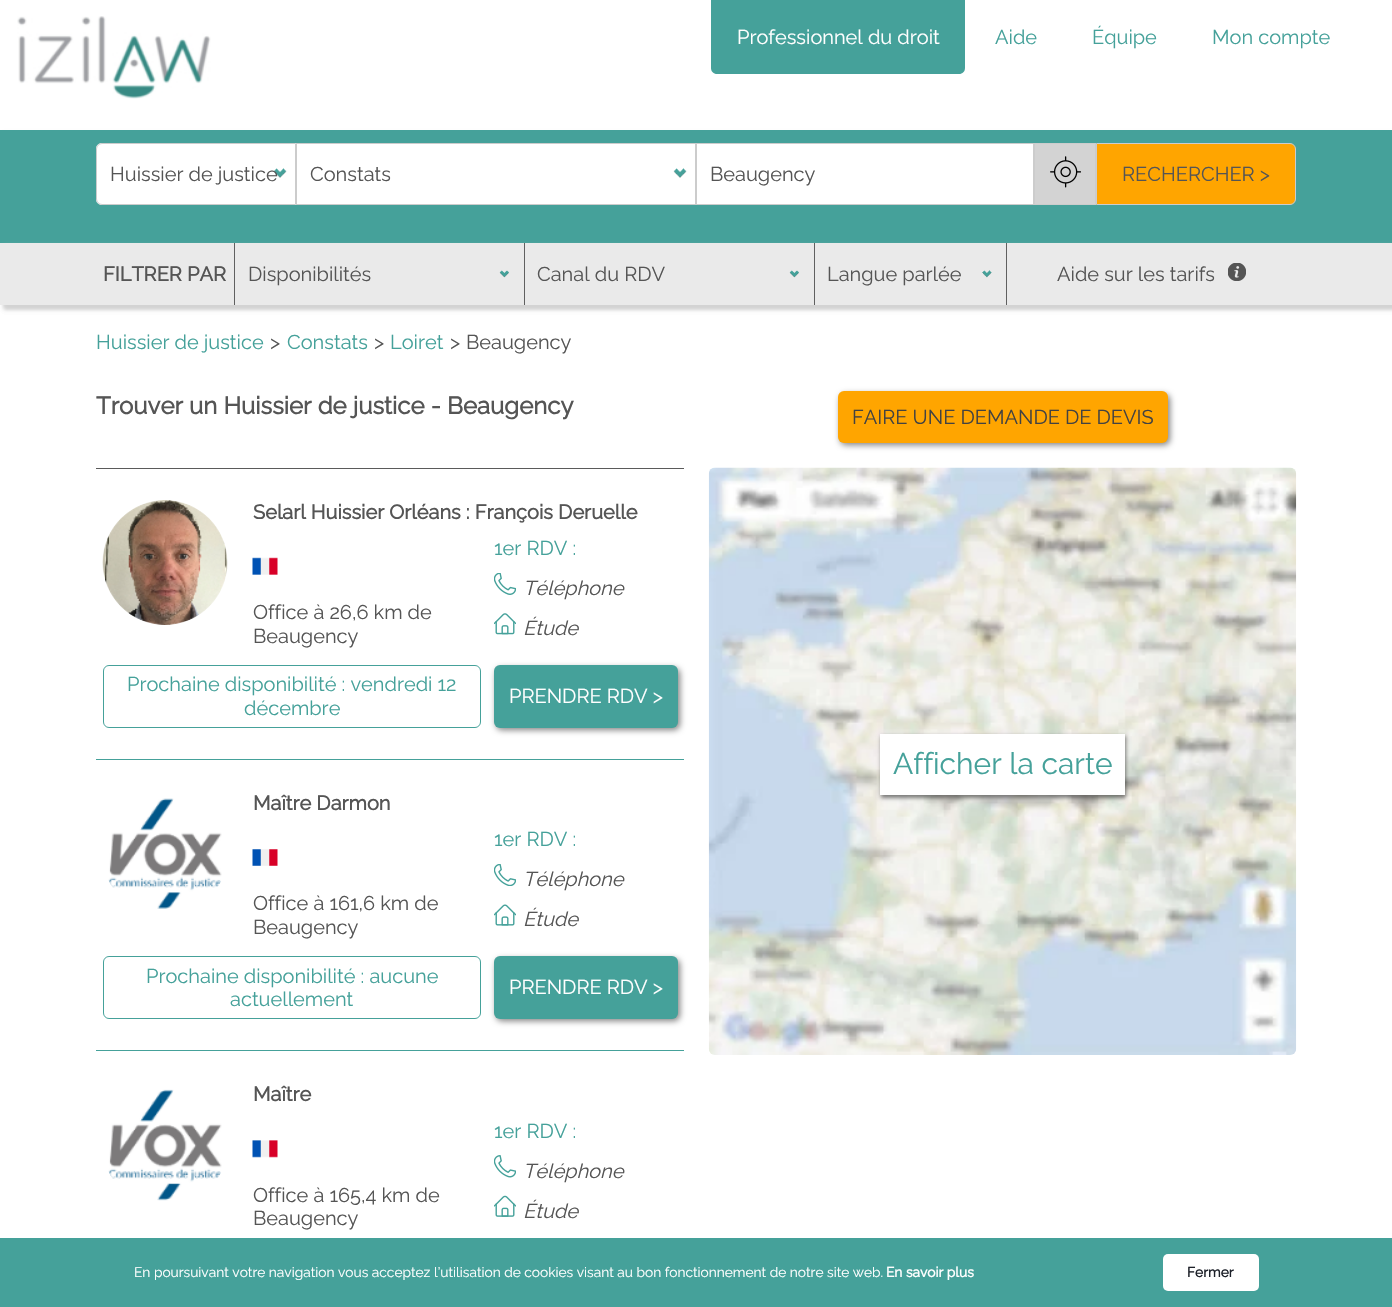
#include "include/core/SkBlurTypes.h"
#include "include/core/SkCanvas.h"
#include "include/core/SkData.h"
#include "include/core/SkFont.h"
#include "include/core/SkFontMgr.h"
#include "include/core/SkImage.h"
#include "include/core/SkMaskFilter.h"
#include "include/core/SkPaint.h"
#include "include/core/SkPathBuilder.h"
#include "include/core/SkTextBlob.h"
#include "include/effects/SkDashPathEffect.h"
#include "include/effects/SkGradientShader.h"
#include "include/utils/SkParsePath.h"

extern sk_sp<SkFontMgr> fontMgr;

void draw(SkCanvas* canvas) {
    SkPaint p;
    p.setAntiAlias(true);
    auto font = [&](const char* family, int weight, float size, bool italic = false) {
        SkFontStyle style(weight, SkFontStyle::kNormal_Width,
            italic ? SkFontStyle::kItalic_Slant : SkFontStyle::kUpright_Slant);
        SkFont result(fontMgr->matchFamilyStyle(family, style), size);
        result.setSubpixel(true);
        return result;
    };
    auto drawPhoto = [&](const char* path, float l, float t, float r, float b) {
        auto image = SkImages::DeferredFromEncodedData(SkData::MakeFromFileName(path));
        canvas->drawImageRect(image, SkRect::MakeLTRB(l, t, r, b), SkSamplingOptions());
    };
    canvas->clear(0xFFFFFFFF);
    drawPhoto("media/1.png", 17, 16, 211, 99);
    p.setColor(0xFF45A19A);
    canvas->drawPath(SkPathBuilder().moveTo(711, 0).lineTo(965, 0).lineTo(965, 68).cubicTo(965, 71.5f, 962.5f, 74, 959, 74).lineTo(717, 74).cubicTo(713.5f, 74, 711, 71.5f, 711, 68).close().detach(), p);
    auto font1 = font("Raleway", 100, 20);
    p.setColor(0xFFFFFFFF);
    canvas->drawString("Professionnel du droit", 737, 44, font1, p);
    p.setColor(0xFF45A19A);
    {
        const struct { const char* s; float x, y; } items[] = {
            {"Aide", 995, 44},
            {"Équipe", 1092, 44},
            {"Mon compte", 1212, 44},
        };
        for (auto [s, x, y] : items) {
            canvas->drawString(s, x, y, font1, p);
        }
    }
    p.setColor(0xFFD3D3D3);
    p.setMaskFilter(SkMaskFilter::MakeBlur(kNormal_SkBlurStyle, 2));
    canvas->drawRect(SkRect::MakeLTRB(4, 134, 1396, 309), p);
    p.setMaskFilter(nullptr);
    p.setColor(0xFF45A19A);
    canvas->drawRect(SkRect::MakeLTRB(0, 130, 1392, 243), p);
    p.setColor(0xFFFFFFFF);
    canvas->drawPath(SkPathBuilder().moveTo(102, 143).lineTo(296, 143).lineTo(296, 205).lineTo(102, 205).cubicTo(98.5f, 205, 96, 202.5f, 96, 199).lineTo(96, 149).cubicTo(96, 145.5f, 98.5f, 143, 102, 143).close().detach(), p);
    drawPhoto("media/2.png", 273, 168, 287, 178);
    p.setStyle(SkPaint::kStroke_Style);
    p.setStrokeWidth(1);
    p.setColor(0xFFCCCCCC);
    canvas->drawPath(SkPathBuilder().moveTo(102, 143.5f).lineTo(295.5f, 143.5f).lineTo(295.5f, 204.5f).lineTo(102, 204.5f).cubicTo(99, 204.5f, 96.5f, 202, 96.5f, 199).lineTo(96.5f, 149).cubicTo(96.5f, 146, 99, 143.5f, 102, 143.5f).close().detach(), p);
    p.setStyle(SkPaint::kFill_Style);
    p.setColor(0xFF555555);
    canvas->drawString("Huissier de justice", 110, 181, font1, p);
    p.setColor(0xFFFFFFFF);
    canvas->drawRect(SkRect::MakeLTRB(297, 144, 695, 204), p);
    drawPhoto("media/2.png", 673, 168, 687, 178);
    p.setStyle(SkPaint::kStroke_Style);
    p.setColor(0xFFCCCCCC);
    canvas->drawRect(SkRect::MakeLTRB(296.5f, 143.5f, 695.5f, 204.5f), p);
    p.setStyle(SkPaint::kFill_Style);
    p.setColor(0xFF555555);
    canvas->drawString("Constats", 310, 181, font1, p);
    p.setColor(0xFFFFFFFF);
    canvas->drawRect(SkRect::MakeLTRB(696.5f, 143.5f, 1033.5f, 204.5f), p);
    p.setStyle(SkPaint::kStroke_Style);
    p.setColor(0xFFCCCCCC);
    canvas->drawRect(SkRect::MakeLTRB(696.5f, 143.5f, 1033.5f, 204.5f), p);
    p.setStyle(SkPaint::kFill_Style);
    p.setColor(0xFF555555);
    canvas->drawString("Beaugency", 710, 181, font1, p);
    p.setColor(0xFFD3D3D3);
    canvas->drawRect(SkRect::MakeLTRB(1034.5f, 143.5f, 1095.5f, 204.5f), p);
    p.setStyle(SkPaint::kStroke_Style);
    p.setColor(0xFFCCCCCC);
    canvas->drawRect(SkRect::MakeLTRB(1034.5f, 143.5f, 1095.5f, 204.5f), p);
    drawPhoto("media/3.png", 1050, 156, 1081, 188);
    p.setStyle(SkPaint::kFill_Style);
    p.setColor(0xFFFFA500);
    canvas->drawPath(SkPathBuilder().moveTo(1096.5f, 143.5f).lineTo(1290, 143.5f).cubicTo(1293, 143.5f, 1295.5f, 146, 1295.5f, 149).lineTo(1295.5f, 199).cubicTo(1295.5f, 202, 1293, 204.5f, 1290, 204.5f).lineTo(1096.5f, 204.5f).close().detach(), p);
    p.setStyle(SkPaint::kStroke_Style);
    p.setColor(0xFFCCCCCC);
    canvas->drawPath(SkPathBuilder().moveTo(1096.5f, 143.5f).lineTo(1290, 143.5f).cubicTo(1293, 143.5f, 1295.5f, 146, 1295.5f, 149).lineTo(1295.5f, 199).cubicTo(1295.5f, 202, 1293, 204.5f, 1290, 204.5f).lineTo(1096.5f, 204.5f).close().detach(), p);
    p.setStyle(SkPaint::kFill_Style);
    p.setColor(0xFF555555);
    canvas->drawString("RECHERCHER >", 1122, 181, font1, p);
    p.setColor(0xFFD3D3D3);
    p.setMaskFilter(SkMaskFilter::MakeBlur(kNormal_SkBlurStyle, 2));
    canvas->drawRect(SkRect::MakeLTRB(4, 246, 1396, 309), p);
    p.setMaskFilter(nullptr);
    p.setColor(0xFFEAEAEA);
    canvas->drawRect(SkRect::MakeLTRB(0, 243, 1392, 305), p);
    auto font2 = font("Raleway", 700, 20);
    p.setColor(0xFF555555);
    canvas->drawString("FILTRER PAR", 103, 281, font2, p);
    drawPhoto("media/4.png", 499, 270, 509, 278);
    p.setColor(0xFF606060);
    canvas->drawRect(SkRect::MakeLTRB(234, 243, 235, 305), p);
    p.setColor(0xFF555555);
    canvas->drawString("Disponibilités", 248, 281, font1, p);
    drawPhoto("media/4.png", 789, 270, 799, 278);
    p.setColor(0xFF606060);
    canvas->drawRect(SkRect::MakeLTRB(524, 243, 525, 305), p);
    p.setColor(0xFF555555);
    canvas->drawString("Canal du RDV", 537, 281, font1, p);
    drawPhoto("media/5.png", 982, 270, 992, 278);
    p.setColor(0xFF606060);
    canvas->drawRect(SkRect::MakeLTRB(814, 243, 815, 305), p);
    p.setColor(0xFF555555);
    canvas->drawString("Langue parlée", 827, 281, font1, p);
    p.setColor(0xFF606060);
    canvas->drawRect(SkRect::MakeLTRB(1006, 243, 1007, 305), p);
    p.setColor(0xFF555555);
    canvas->drawString("Aide sur les tarifs", 1057, 281, font1, p);
    drawPhoto("media/6.png", 1228, 263, 1246, 281);
    p.setColor(0xFF45A19A);
    canvas->drawString("Huissier de justice", 96, 349, font1, p);
    p.setColor(0xFF555555);
    canvas->drawString(">", 270, 349, font1, p);
    p.setColor(0xFF45A19A);
    canvas->drawString("Constats", 287, 349, font1, p);
    p.setColor(0xFF555555);
    canvas->drawString(">", 374, 349, font1, p);
    p.setColor(0xFF45A19A);
    canvas->drawString("Loiret", 390, 349, font1, p);
    p.setColor(0xFF555555);
    canvas->drawString(">", 450, 349, font1, p);
    canvas->drawString("Beaugency", 466, 349, font1, p);
    auto font3 = font("Raleway", 700, 24);
    canvas->drawString("Trouver un Huissier de justice - Beaugency", 96, 414, font3, p);
    p.setColor(0xFF808080);
    p.setMaskFilter(SkMaskFilter::MakeBlur(kNormal_SkBlurStyle, 3));
    canvas->drawRoundRect(SkRect::MakeLTRB(840, 394, 1170, 445), 6, 6, p);
    p.setMaskFilter(nullptr);
    p.setColor(0xFFFFA500);
    canvas->drawRoundRect(SkRect::MakeLTRB(838, 391, 1168, 443), 6, 6, p);
    p.setColor(0xFF424242);
    canvas->drawString("FAIRE UNE DEMANDE DE DEVIS", 852, 424, font1, p);
    p.setColor(0xFF5A5A5A);
    canvas->drawRect(SkRect::MakeLTRB(96, 468, 684, 469), p);
    drawPhoto("media/7.png", 102, 500, 228, 625);
    p.setColor(0xFF555555);
    canvas->drawString("Selarl Huissier Orléans : François Deruelle", 253, 519, font2, p);
    drawPhoto("media/8.png", 252, 557, 278, 575);
    p.setColor(0xFF45A19A);
    canvas->drawString("1er RDV :", 494, 555, font1, p);
    drawPhoto("media/9.png", 494, 573, 516, 595);
    auto font4 = font("Raleway", 100, 20, true);
    p.setColor(0xFF555555);
    canvas->drawString("Téléphone", 523, 595, font4, p);
    drawPhoto("media/10.png", 494, 613, 516, 635);
    canvas->drawString("Étude", 523, 635, font4, p);
    canvas->drawString("Office à 26,6 km de", 253, 619, font1, p);
    canvas->drawString("Beaugency", 253, 643, font1, p);
    p.setStyle(SkPaint::kStroke_Style);
    p.setColor(0xFF45A19A);
    canvas->drawRoundRect(SkRect::MakeLTRB(103.5f, 665.5f, 480.5f, 727.5f), 5.5f, 5.5f, p);
    p.setStyle(SkPaint::kFill_Style);
    canvas->drawString("Prochaine disponibilité : vendredi 12", 127, 691, font1, p);
    canvas->drawString("décembre", 244, 715, font1, p);
    p.setColor(0xFF808080);
    p.setMaskFilter(SkMaskFilter::MakeBlur(kNormal_SkBlurStyle, 3));
    canvas->drawRoundRect(SkRect::MakeLTRB(496, 668, 680, 730), 6, 6, p);
    p.setMaskFilter(nullptr);
    p.setColor(0xFF45A19A);
    canvas->drawRoundRect(SkRect::MakeLTRB(494, 665, 678, 728), 6, 6, p);
    p.setColor(0xFFFFFFFF);
    canvas->drawString("PRENDRE RDV >", 509, 703, font1, p);
    p.setColor(0xFF45A19A);
    canvas->drawRect(SkRect::MakeLTRB(96, 759, 684, 760), p);
    drawPhoto("media/11.png", 108, 798, 222, 909);
    p.setColor(0xFF555555);
    canvas->drawString("Maître Darmon", 253, 810, font2, p);
    p.setColor(0xFF45A19A);
    canvas->drawString("1er RDV :", 494, 846, font1, p);
    drawPhoto("media/12.png", 494, 864, 516, 886);
    p.setColor(0xFF555555);
    canvas->drawString("Téléphone", 523, 886, font4, p);
    drawPhoto("media/13.png", 494, 904, 516, 926);
    canvas->drawString("Étude", 523, 926, font4, p);
    drawPhoto("media/14.png", 252, 849, 278, 866);
    canvas->drawString("Office à 161,6 km de", 253, 910, font1, p);
    canvas->drawString("Beaugency", 253, 934, font1, p);
    p.setStyle(SkPaint::kStroke_Style);
    p.setColor(0xFF45A19A);
    canvas->drawRoundRect(SkRect::MakeLTRB(103.5f, 956.5f, 480.5f, 1018.5f), 5.5f, 5.5f, p);
    p.setStyle(SkPaint::kFill_Style);
    canvas->drawString("Prochaine disponibilité : aucune", 146, 983, font1, p);
    canvas->drawString("actuellement", 230, 1006, font1, p);
    p.setColor(0xFF808080);
    p.setMaskFilter(SkMaskFilter::MakeBlur(kNormal_SkBlurStyle, 3));
    canvas->drawRoundRect(SkRect::MakeLTRB(496, 959, 680, 1021), 6, 6, p);
    p.setMaskFilter(nullptr);
    p.setColor(0xFF45A19A);
    canvas->drawRoundRect(SkRect::MakeLTRB(494, 956, 678, 1019), 6, 6, p);
    p.setColor(0xFFFFFFFF);
    canvas->drawString("PRENDRE RDV >", 509, 994, font1, p);
    p.setColor(0xFF45A19A);
    canvas->drawRect(SkRect::MakeLTRB(96, 1050, 684, 1051), p);
    drawPhoto("media/15.png", 108, 1089, 222, 1201);
    p.setColor(0xFF555555);
    canvas->drawString("Maître", 253, 1101, font2, p);
    p.setColor(0xFF45A19A);
    canvas->drawString("1er RDV :", 494, 1138, font1, p);
    drawPhoto("media/16.png", 494, 1155, 516, 1178);
    p.setColor(0xFF555555);
    canvas->drawString("Téléphone", 523, 1178, font4, p);
    drawPhoto("media/17.png", 494, 1195, 516, 1217);
    canvas->drawString("Étude", 523, 1218, font4, p);
    drawPhoto("media/18.png", 252, 1140, 278, 1158);
    canvas->drawString("Office à 165,4 km de", 253, 1202, font1, p);
    canvas->drawString("Beaugency", 253, 1225, font1, p);
    drawPhoto("media/19.png", 708, 467, 1297, 1055);
    p.setColor(0x80000000);
    p.setMaskFilter(SkMaskFilter::MakeBlur(kNormal_SkBlurStyle, 2));
    canvas->drawRect(SkRect::MakeLTRB(881, 736, 1126, 798), p);
    p.setMaskFilter(nullptr);
    p.setColor(0xFFFFFFFF);
    canvas->drawRect(SkRect::MakeLTRB(880, 734, 1125, 795), p);
    auto font5 = font("Raleway", 100, 30);
    p.setColor(0xFF45A19A);
    canvas->drawString("Afficher la carte", 893, 774, font5, p);
    canvas->drawRect(SkRect::MakeLTRB(0, 1238, 1392, 1307), p);
    auto font6 = font("Raleway", 100, 13.75f);
    p.setColor(0xFFFFFFFF);
    canvas->drawString("En poursuivant votre navigation vous acceptez l’utilisation de cookies visant au bon fonctionnement de notre site web.", 134, 1277, font6, p);
    auto font7 = font("Raleway", 700, 13.75f);
    canvas->drawString("En savoir plus", 886, 1277, font7, p);
    canvas->drawRoundRect(SkRect::MakeLTRB(1163, 1254, 1259, 1291), 5, 5, p);
    p.setColor(0xFF1D2129);
    canvas->drawString("Fermer", 1187, 1277, font7, p);
}
